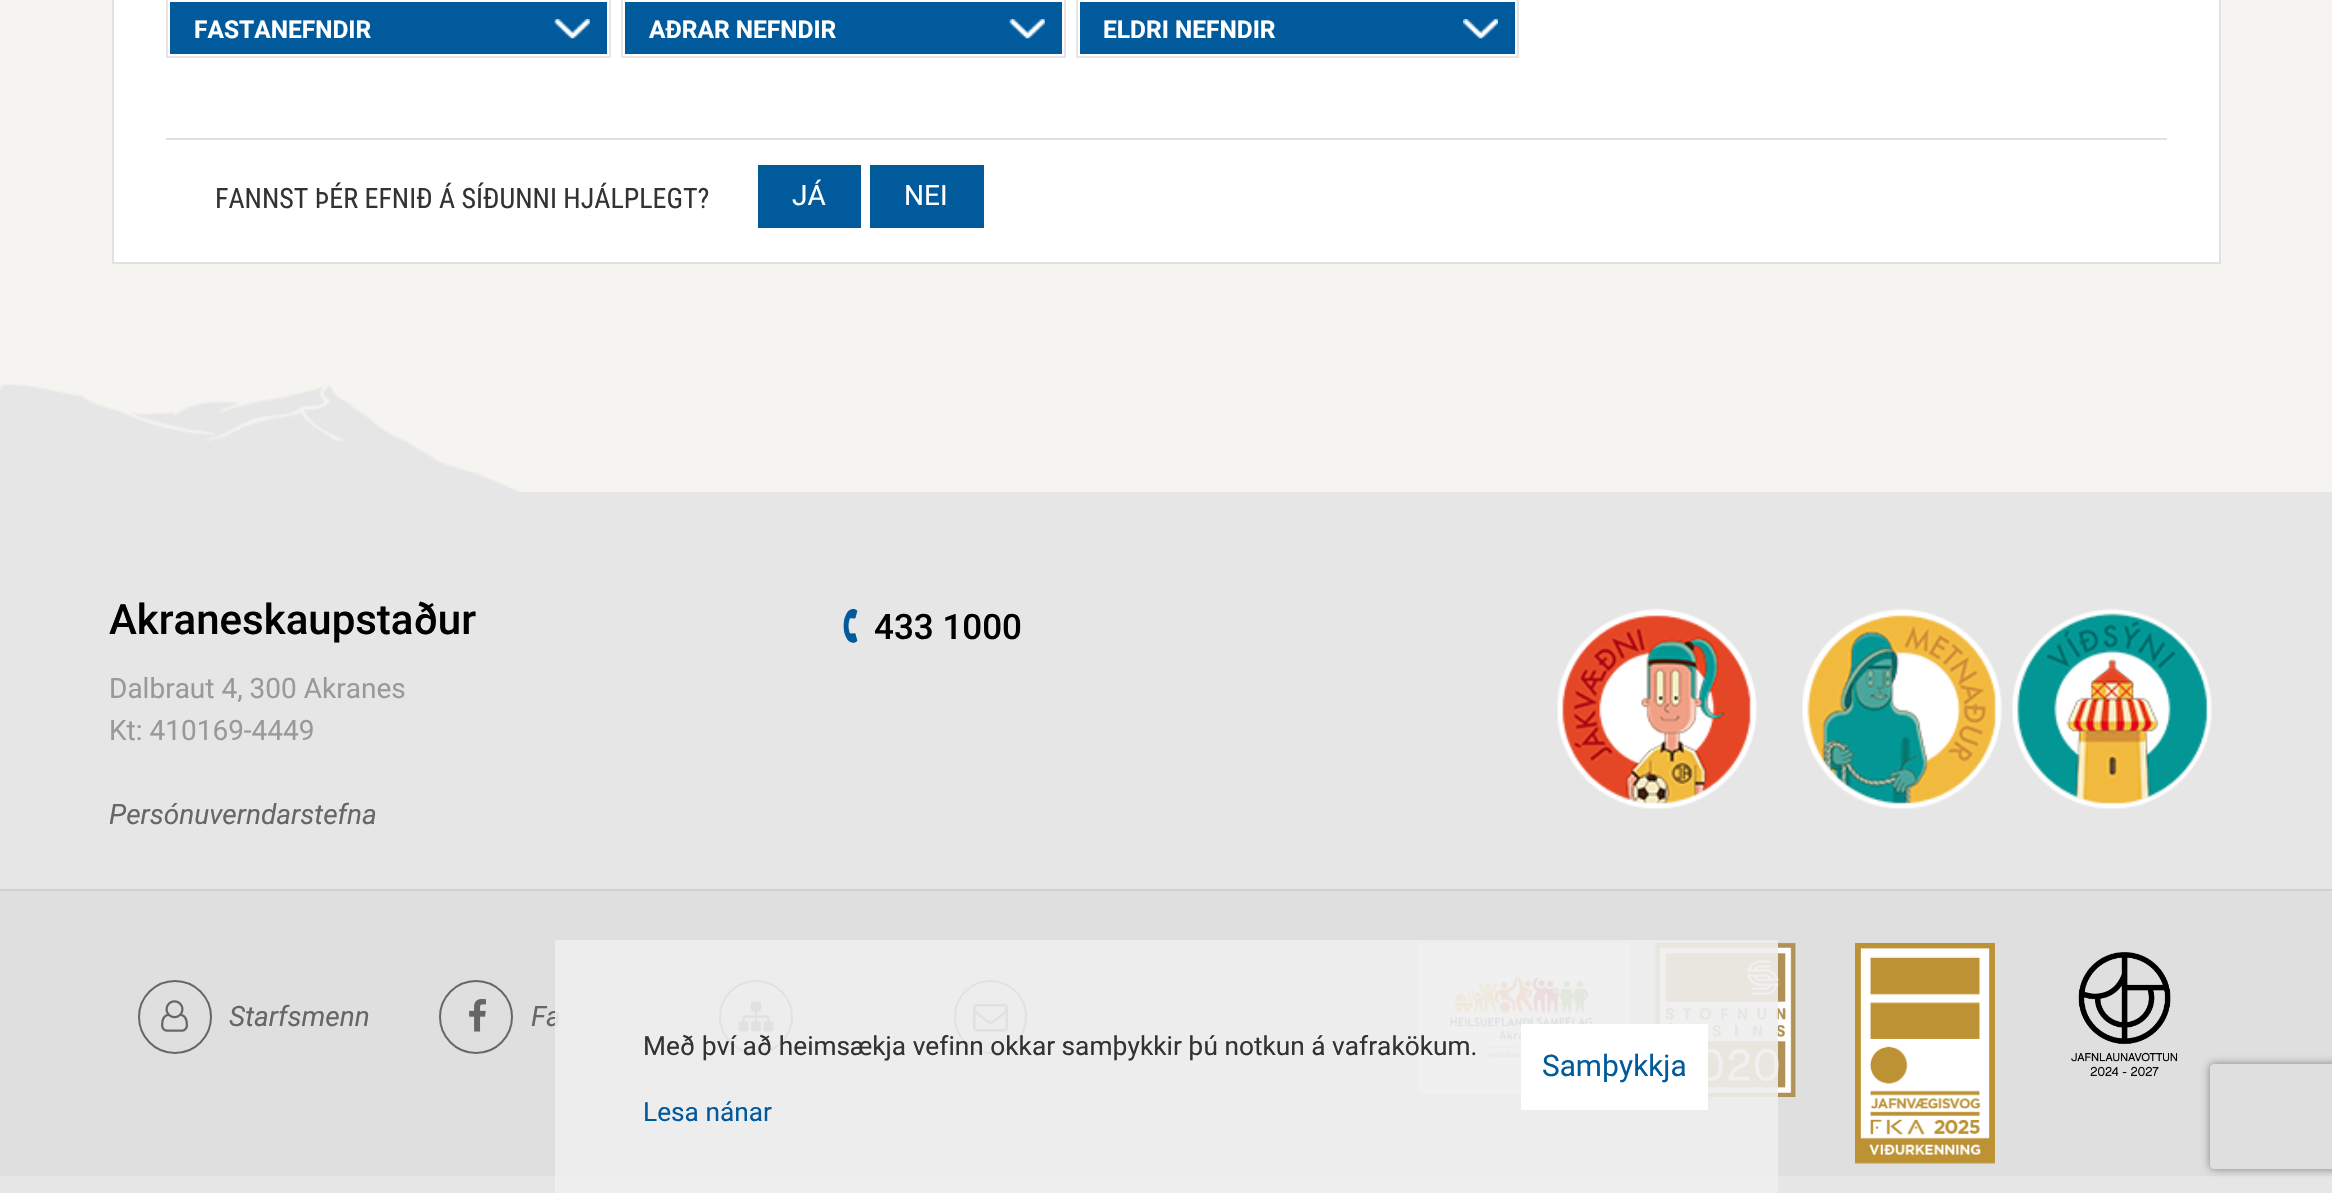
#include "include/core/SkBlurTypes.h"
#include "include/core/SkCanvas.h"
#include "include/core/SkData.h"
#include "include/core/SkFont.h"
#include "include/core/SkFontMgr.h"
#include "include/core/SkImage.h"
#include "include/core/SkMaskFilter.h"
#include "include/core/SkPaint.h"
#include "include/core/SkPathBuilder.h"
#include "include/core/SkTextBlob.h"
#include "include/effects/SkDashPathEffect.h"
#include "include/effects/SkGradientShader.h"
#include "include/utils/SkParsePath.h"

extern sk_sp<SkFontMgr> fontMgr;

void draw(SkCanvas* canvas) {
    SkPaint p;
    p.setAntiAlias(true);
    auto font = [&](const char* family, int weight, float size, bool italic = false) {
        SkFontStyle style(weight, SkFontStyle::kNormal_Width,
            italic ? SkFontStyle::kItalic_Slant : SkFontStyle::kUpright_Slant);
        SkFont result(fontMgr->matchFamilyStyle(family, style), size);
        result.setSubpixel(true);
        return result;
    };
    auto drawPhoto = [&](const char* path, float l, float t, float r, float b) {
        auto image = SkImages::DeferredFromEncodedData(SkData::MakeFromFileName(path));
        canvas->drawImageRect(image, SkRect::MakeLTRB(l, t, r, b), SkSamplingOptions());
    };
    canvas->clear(0xFFF5F4F0);
    p.setColor(0xFFFFFFFF);
    canvas->drawRect(SkRect::MakeLTRB(113, -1, 2220, 263), p);
    p.setStyle(SkPaint::kStroke_Style);
    p.setStrokeWidth(2);
    p.setColor(0xFFE1E1E1);
    canvas->drawRect(SkRect::MakeLTRB(113, -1, 2220, 263), p);
    p.setColor(0xFFE5E5E5);
    canvas->drawRect(SkRect::MakeLTRB(167, -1, 610, 57), p);
    p.setStyle(SkPaint::kFill_Style);
    p.setColor(0xFF005A9C);
    canvas->drawRect(SkRect::MakeLTRB(170, 2, 607, 54), p);
    drawPhoto("media/1.png", 554, 19, 590, 39);
    auto font1 = font("Roboto", 700, 24.5f);
    p.setColor(0xFFFFFFFF);
    canvas->drawString("FASTANEFNDIR", 194, 38, font1, p);
    p.setStyle(SkPaint::kStroke_Style);
    p.setColor(0xFFE5E5E5);
    canvas->drawRect(SkRect::MakeLTRB(622, -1, 1065, 57), p);
    p.setStyle(SkPaint::kFill_Style);
    p.setColor(0xFF005A9C);
    canvas->drawRect(SkRect::MakeLTRB(625, 2, 1062, 54), p);
    drawPhoto("media/2.png", 1009, 19, 1045, 39);
    p.setColor(0xFFFFFFFF);
    canvas->drawString("AÐRAR NEFNDIR", 649, 38, font1, p);
    p.setStyle(SkPaint::kStroke_Style);
    p.setColor(0xFFE5E5E5);
    canvas->drawRect(SkRect::MakeLTRB(1077, -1, 1518, 57), p);
    p.setStyle(SkPaint::kFill_Style);
    p.setColor(0xFF005A9C);
    canvas->drawRect(SkRect::MakeLTRB(1080, 2, 1515, 54), p);
    drawPhoto("media/3.png", 1463, 19, 1498, 39);
    p.setColor(0xFFFFFFFF);
    canvas->drawString("ELDRI NEFNDIR", 1103, 38, font1, p);
    p.setColor(0xFFE1E1E1);
    canvas->drawRect(SkRect::MakeLTRB(166, 138, 2167, 140), p);
    auto font2 = font("Roboto Condensed", 400, 28);
    p.setColor(0xFF333333);
    canvas->drawString("FANNST ÞÉR EFNIÐ Á SÍÐUNNI HJÁLPLEGT?", 215, 208, font2, p);
    p.setColor(0xFF005A9C);
    canvas->drawRect(SkRect::MakeLTRB(758, 165, 861, 228), p);
    auto font3 = font("Roboto", 400, 28);
    p.setColor(0xFFFFFFFF);
    canvas->drawString("JÁ", 792, 205, font3, p);
    p.setColor(0xFF005A9C);
    canvas->drawRect(SkRect::MakeLTRB(870, 165, 984, 228), p);
    p.setColor(0xFFFFFFFF);
    canvas->drawString("NEI", 904, 205, font3, p);
    p.setColor(0xFFE6E6E6);
    canvas->drawRect(SkRect::MakeLTRB(0, 492, 2332, 1193), p);
    drawPhoto("media/4.png", 0, 384, 521, 492);
    auto font4 = font("Roboto", 500, 42);
    p.setColor(0xFF000000);
    canvas->drawString("Akraneskaupstaður", 109, 634, font4, p);
    p.setColor(0xFF999999);
    canvas->drawString("Dalbraut 4, 300 Akranes", 109, 698, font3, p);
    canvas->drawString("Kt: 410169-4449", 109, 740, font3, p);
    auto font5 = font("Roboto", 400, 28, true);
    p.setColor(0xFF666666);
    canvas->drawString("Persónuverndarstefna", 109, 824, font5, p);
    drawPhoto("media/5.png", 843, 608, 858, 643);
    auto font6 = font("Roboto", 500, 35);
    p.setColor(0xFF000000);
    canvas->drawString("433 1000", 874, 639, font6, p);
    drawPhoto("media/6.png", 1557, 608, 1757, 809);
    drawPhoto("media/7.png", 1802, 608, 2002, 809);
    drawPhoto("media/8.png", 2012, 608, 2212, 809);
    p.setColor(0xFFDFDFDF);
    canvas->drawRect(SkRect::MakeLTRB(0, 891, 2332, 1176), p);
    p.setColor(0xFFCFCFCF);
    canvas->drawRect(SkRect::MakeLTRB(0, 889, 2332, 891), p);
    p.setStyle(SkPaint::kStroke_Style);
    p.setColor(0xFF666666);
    canvas->drawCircle(175, 1017, 36, p);
    drawPhoto("media/9.png", 161, 1000, 188, 1032);
    p.setStyle(SkPaint::kFill_Style);
    canvas->drawString("Starfsmenn", 229, 1026, font5, p);
    p.setStyle(SkPaint::kStroke_Style);
    canvas->drawCircle(476, 1017, 36, p);
    drawPhoto("media/10.png", 469, 999, 486, 1032);
    p.setStyle(SkPaint::kFill_Style);
    canvas->drawString("Fa", 531, 1026, font5, p);
    p.setStyle(SkPaint::kStroke_Style);
    canvas->drawCircle(756, 1017, 36, p);
    drawPhoto("media/11.png", 738, 1001, 774, 1032);
    canvas->drawRoundRect(SkRect::MakeLTRB(955, 981, 1026, 1053), 35.5f, 35.5f, p);
    drawPhoto("media/12.png", 973, 1004, 1008, 1032);
    drawPhoto("media/13.png", 1419, 943, 1630, 1094);
    drawPhoto("media/14.png", 1655, 943, 1796, 1097);
    drawPhoto("media/15.png", 1855, 943, 1995, 1164);
    drawPhoto("media/16.png", 2071, 952, 2178, 1077);
    p.setStyle(SkPaint::kFill_Style);
    p.setColor(0xE6EEEEEE);
    canvas->drawRect(SkRect::MakeLTRB(555, 940, 1778, 1193), p);
    auto font7 = font("Roboto", 400, 26.25f);
    p.setColor(0xFF333333);
    canvas->drawString("Með því að heimsækja vefinn okkar samþykkir þú notkun á vafrakökum.", 643, 1055, font7, p);
    p.setColor(0xFF005A9C);
    canvas->drawString("Lesa nánar", 643, 1121, font7, p);
    p.setColor(0xFFFFFFFF);
    canvas->drawRect(SkRect::MakeLTRB(1521, 1024, 1708, 1110), p);
    auto font8 = font("Roboto", 400, 29.75f);
    p.setColor(0xFF005A9C);
    canvas->drawString("Samþykkja", 1542, 1076, font8, p);
    canvas->save();
    canvas->clipPath(SkPathBuilder(SkPathFillType::kEvenOdd).moveTo(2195, 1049).lineTo(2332, 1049).lineTo(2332, 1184).lineTo(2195, 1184).close().moveTo(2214, 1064).lineTo(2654, 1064).cubicTo(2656, 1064, 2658, 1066, 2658, 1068).lineTo(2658, 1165).cubicTo(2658, 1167, 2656, 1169, 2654, 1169).lineTo(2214, 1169).cubicTo(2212, 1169, 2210, 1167, 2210, 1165).lineTo(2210, 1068).cubicTo(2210, 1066, 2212, 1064, 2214, 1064).close().detach(), true);
    p.setColor(0xFF808080);
    p.setMaskFilter(SkMaskFilter::MakeBlur(kNormal_SkBlurStyle, 4.5f));
    canvas->drawRoundRect(SkRect::MakeLTRB(2210, 1064, 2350, 1169), 4, 4, p);
    p.setMaskFilter(nullptr);
    canvas->restore();
}
